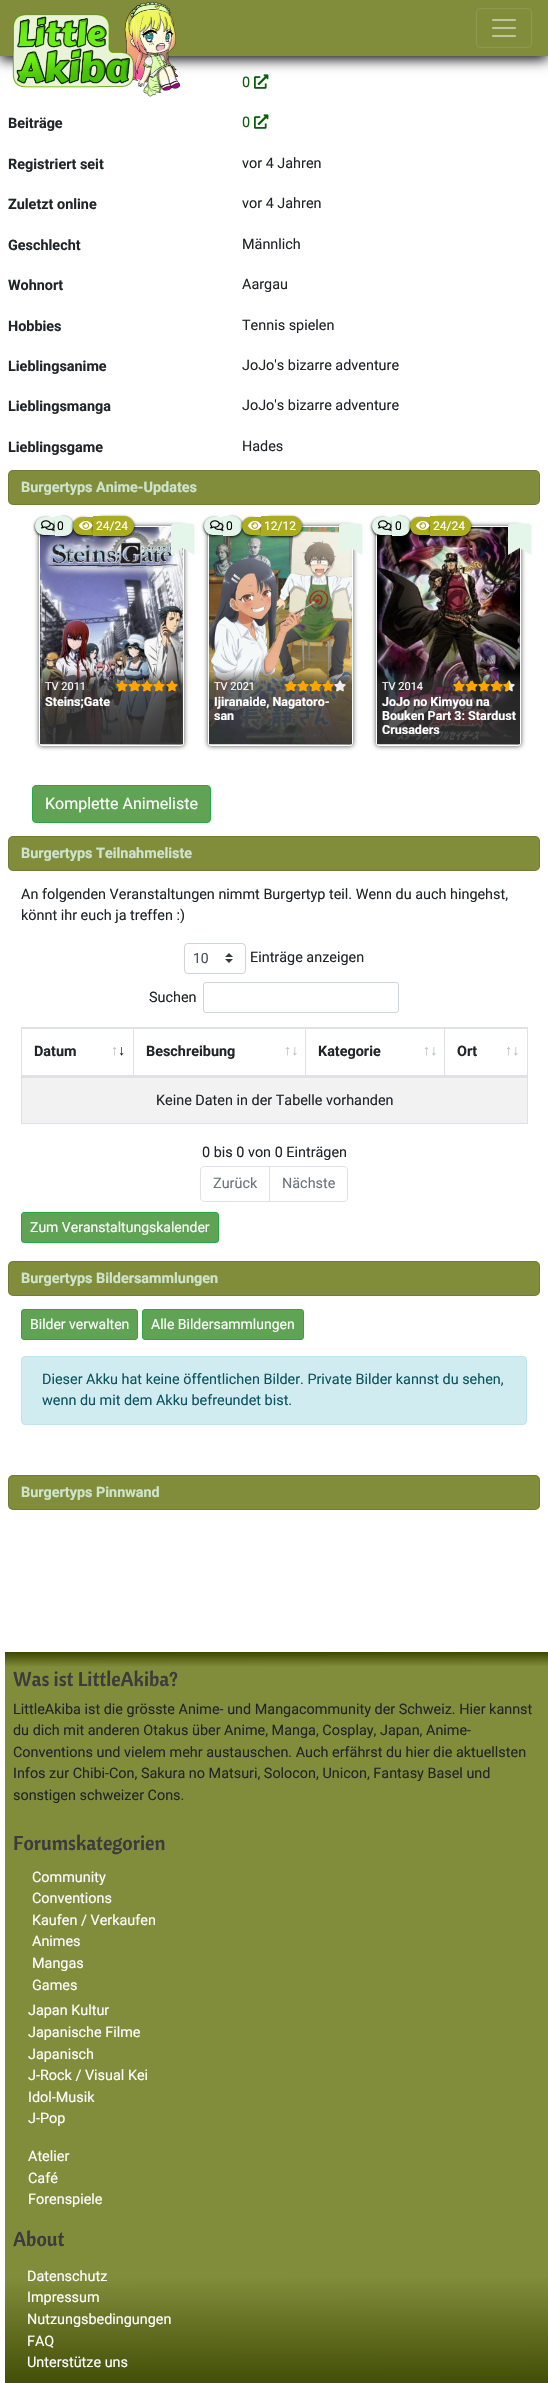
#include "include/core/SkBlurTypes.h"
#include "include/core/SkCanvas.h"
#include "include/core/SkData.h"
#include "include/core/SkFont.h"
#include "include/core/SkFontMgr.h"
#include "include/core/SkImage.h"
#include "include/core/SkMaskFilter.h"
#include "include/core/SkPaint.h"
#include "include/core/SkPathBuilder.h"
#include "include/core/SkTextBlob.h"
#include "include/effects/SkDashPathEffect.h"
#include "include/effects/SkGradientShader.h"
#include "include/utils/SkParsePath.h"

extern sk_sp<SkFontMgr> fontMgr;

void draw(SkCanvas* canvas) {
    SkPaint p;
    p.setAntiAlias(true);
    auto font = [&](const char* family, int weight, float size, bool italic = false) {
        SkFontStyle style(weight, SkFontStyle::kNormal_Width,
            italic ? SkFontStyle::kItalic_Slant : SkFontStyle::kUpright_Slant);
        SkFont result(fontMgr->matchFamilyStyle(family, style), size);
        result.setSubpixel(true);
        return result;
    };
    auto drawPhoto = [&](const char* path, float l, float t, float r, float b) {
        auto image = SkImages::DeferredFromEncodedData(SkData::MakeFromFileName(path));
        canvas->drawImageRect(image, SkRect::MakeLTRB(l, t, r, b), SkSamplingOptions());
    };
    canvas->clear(0xFFFFFFFF);
    drawPhoto("media/3.png", 254, 74, 269, 89);
    p.setColor(0xFF000000);
    p.setMaskFilter(SkMaskFilter::MakeBlur(kNormal_SkBlurStyle, 6.5f));
    canvas->drawRect(SkRect::MakeLTRB(0, 3, 548, 59), p);
    p.setMaskFilter(nullptr);
    p.setColor(0xFF828D3B);
    canvas->drawRect(SkRect::MakeLTRB(0, 0, 548, 56), p);
    drawPhoto("media/1.png", 12, 1, 181, 97);
    p.setStyle(SkPaint::kStroke_Style);
    p.setStrokeWidth(1);
    p.setColor(0xFF8F984F);
    canvas->drawRoundRect(SkRect::MakeLTRB(476.5f, 8.5f, 531.5f, 47.5f), 3.5f, 3.5f, p);
    drawPhoto("media/2.png", 492, 19, 516, 37);
    auto font1 = font("Roboto", 400, 14.4f);
    p.setStyle(SkPaint::kFill_Style);
    p.setColor(0xFF0B5F0B);
    canvas->drawString("0", 242, 87, font1, p);
    auto font2 = font("Roboto", 700, 14.4f);
    p.setColor(0xFF212529);
    canvas->drawString("Beiträge", 8, 128, font2, p);
    p.setColor(0xFF0B5F0B);
    canvas->drawString("0", 242, 127, font1, p);
    drawPhoto("media/3.png", 254, 114, 269, 129);
    p.setColor(0xFF212529);
    canvas->drawString("Registriert seit", 8, 169, font2, p);
    canvas->drawString("vor 4 Jahren", 242, 168, font1, p);
    canvas->drawString("Zuletzt online", 8, 209, font2, p);
    canvas->drawString("vor 4 Jahren", 242, 208, font1, p);
    canvas->drawString("Geschlecht", 8, 250, font2, p);
    canvas->drawString("Männlich", 242, 249, font1, p);
    canvas->drawString("Wohnort", 8, 290, font2, p);
    canvas->drawString("Aargau", 242, 289, font1, p);
    canvas->drawString("Hobbies", 8, 331, font2, p);
    canvas->drawString("Tennis spielen", 242, 330, font1, p);
    canvas->drawString("Lieblingsanime", 8, 371, font2, p);
    canvas->drawString("JoJo's bizarre adventure", 242, 370, font1, p);
    canvas->drawString("Lieblingsmanga", 8, 411, font2, p);
    canvas->drawString("JoJo's bizarre adventure", 242, 410, font1, p);
    canvas->drawString("Lieblingsgame", 8, 452, font2, p);
    canvas->drawString("Hades", 242, 451, font1, p);
    p.setColor(0xFF828D3B);
    canvas->drawRoundRect(SkRect::MakeLTRB(8, 470, 540, 505), 5, 5, p);
    p.setStyle(SkPaint::kStroke_Style);
    p.setColor(0x1F000000);
    canvas->drawRoundRect(SkRect::MakeLTRB(8.5f, 470.5f, 539.5f, 504.5f), 4.5f, 4.5f, p);
    p.setStyle(SkPaint::kFill_Style);
    p.setColor(0xFFCDE5CD);
    canvas->drawString("Burgertyps Anime-Updates", 21, 492, font2, p);
    p.setColor(0xB3000000);
    p.setMaskFilter(SkMaskFilter::MakeBlur(kNormal_SkBlurStyle, 2.5f));
    canvas->drawRoundRect(SkRect::MakeLTRB(39, 526, 184, 746), 3, 3, p);
    p.setMaskFilter(nullptr);
    {
        const SkColor colors[] = {0xFFE2E2E2, 0xFFFEFEFE, 0xFFFEFEFE, 0xFFDBDBDB, 0xFFD1D1D1, 0xFFD1D1D1, 0xFF919191};
        const float stops[] = {0, 0.13f, 0.26f, 0.55f, 0.58f, 0.67f, 1};
        const SkPoint ends[] = {{21, 546}, {202, 726}};
        p.setShader(SkGradientShader::MakeLinear(ends, colors, stops, 7, SkTileMode::kClamp));
        p.setAlpha(255);
    }
    canvas->drawRect(SkRect::MakeLTRB(40, 744, 183, 745), p);
    p.setStyle(SkPaint::kStroke_Style);
    p.setShader(nullptr);
    p.setColor(0xFFFFFFFF);
    canvas->drawRoundRect(SkRect::MakeLTRB(39.5f, 526.5f, 183.5f, 745.5f), 2.5f, 2.5f, p);
    drawPhoto("media/6.png", 40, 527, 183, 744);
    p.setStyle(SkPaint::kFill_Style);
    p.setColor(0xFF000000);
    p.setMaskFilter(SkMaskFilter::MakeBlur(kNormal_SkBlurStyle, 1.5f));
    canvas->drawRoundRect(SkRect::MakeLTRB(35, 518, 55, 536), 9, 9, p);
    p.setMaskFilter(nullptr);
    p.setColor(0xFFE4F6E9);
    canvas->drawPath(SkPathBuilder().moveTo(44, 517).lineTo(55, 517).lineTo(55, 535).lineTo(44, 535).cubicTo(39, 535, 35, 531, 35, 526).cubicTo(35, 521, 39, 517, 44, 517).close().detach(), p);
    p.setColor(0xFF000000);
    p.setMaskFilter(SkMaskFilter::MakeBlur(kNormal_SkBlurStyle, 1.5f));
    canvas->drawRoundRect(SkRect::MakeLTRB(55, 517, 73, 537), 9, 9, p);
    p.setMaskFilter(nullptr);
    p.setColor(0xFFE4F6E9);
    canvas->drawPath(SkPathBuilder().moveTo(55, 516).lineTo(64, 516).cubicTo(69, 516, 73, 520, 73, 525).lineTo(73, 527).cubicTo(73, 532, 69, 536, 64, 536).lineTo(55, 536).close().detach(), p);
    drawPhoto("media/4.png", 41, 520, 55, 531);
    auto font3 = font("Roboto", 400, 12);
    p.setColor(0xFF000000);
    canvas->drawString("0", 57, 530, font3, p);
    p.setMaskFilter(SkMaskFilter::MakeBlur(kNormal_SkBlurStyle, 1.5f));
    canvas->drawRoundRect(SkRect::MakeLTRB(73, 518, 93, 536), 9, 9, p);
    p.setMaskFilter(nullptr);
    p.setColor(0xFFACAC21);
    canvas->drawPath(SkPathBuilder().moveTo(82, 517).lineTo(93, 517).lineTo(93, 535).lineTo(82, 535).cubicTo(77, 535, 73, 531, 73, 526).cubicTo(73, 521, 77, 517, 82, 517).close().detach(), p);
    p.setColor(0xFF000000);
    p.setMaskFilter(SkMaskFilter::MakeBlur(kNormal_SkBlurStyle, 1.5f));
    canvas->drawRoundRect(SkRect::MakeLTRB(93, 517, 134, 537), 10, 10, p);
    p.setMaskFilter(nullptr);
    p.setColor(0xFFACAC21);
    canvas->drawPath(SkPathBuilder().moveTo(93, 516).lineTo(124, 516).cubicTo(129.5f, 516, 134, 520.5f, 134, 526).cubicTo(134, 531.5f, 129.5f, 536, 124, 536).lineTo(93, 536).close().detach(), p);
    drawPhoto("media/5.png", 79, 521, 93, 530);
    p.setColor(0xFFFFFFFF);
    canvas->drawString("24/24", 96, 530, font3, p);
    p.setColor(0xFFE4F6E9);
    canvas->drawPath(SkPathBuilder().moveTo(171, 555).lineTo(171, 526).cubicTo(171.5f, 523, 175, 523.5f, 177, 523.5f).lineTo(188.5f, 523.5f).cubicTo(190.5f, 523.5f, 194, 523, 194.5f, 526).lineTo(194.5f, 555).lineTo(182.5f, 548).close().detach(), p);
    auto font4 = font("Roboto", 400, 11);
    p.setColor(0xFFFFFFFF);
    canvas->drawString("TV 2011", 45, 690, font4, p);
    drawPhoto("media/7.png", 116, 680, 128, 692);
    drawPhoto("media/8.png", 116, 680, 123, 692);
    drawPhoto("media/10.png", 129, 680, 141, 692);
    drawPhoto("media/9.png", 128, 680, 135, 692);
    drawPhoto("media/11.png", 141, 680, 153, 692);
    drawPhoto("media/12.png", 141, 680, 148, 692);
    drawPhoto("media/13.png", 153, 680, 165, 692);
    drawPhoto("media/14.png", 153, 680, 160, 692);
    drawPhoto("media/15.png", 166, 680, 178, 692);
    drawPhoto("media/16.png", 166, 680, 173, 692);
    auto font5 = font("Roboto", 700, 12.5f);
    canvas->drawString("Steins;Gate", 45, 706, font5, p);
    p.setColor(0xB3000000);
    p.setMaskFilter(SkMaskFilter::MakeBlur(kNormal_SkBlurStyle, 2.5f));
    canvas->drawRoundRect(SkRect::MakeLTRB(208, 526, 353, 746), 3, 3, p);
    p.setMaskFilter(nullptr);
    {
        const SkColor colors[] = {0xFFE2E2E2, 0xFFFEFEFE, 0xFFFEFEFE, 0xFFDBDBDB, 0xFFD1D1D1, 0xFFD1D1D1, 0xFF919191};
        const float stops[] = {0, 0.13f, 0.26f, 0.55f, 0.58f, 0.67f, 1};
        const SkPoint ends[] = {{190, 546}, {371, 726}};
        p.setShader(SkGradientShader::MakeLinear(ends, colors, stops, 7, SkTileMode::kClamp));
        p.setAlpha(255);
    }
    canvas->drawRect(SkRect::MakeLTRB(209, 744, 352, 745), p);
    p.setStyle(SkPaint::kStroke_Style);
    p.setShader(nullptr);
    p.setColor(0xFFFFFFFF);
    canvas->drawRoundRect(SkRect::MakeLTRB(208.5f, 526.5f, 352.5f, 745.5f), 2.5f, 2.5f, p);
    drawPhoto("media/19.png", 209, 527, 352, 744);
    p.setStyle(SkPaint::kFill_Style);
    p.setColor(0xFF000000);
    p.setMaskFilter(SkMaskFilter::MakeBlur(kNormal_SkBlurStyle, 1.5f));
    canvas->drawRoundRect(SkRect::MakeLTRB(204, 518, 223, 536), 9, 9, p);
    p.setMaskFilter(nullptr);
    p.setColor(0xFFE4F6E9);
    canvas->drawPath(SkPathBuilder().moveTo(213, 517).lineTo(223, 517).lineTo(223, 535).lineTo(213, 535).cubicTo(208, 535, 204, 531, 204, 526).cubicTo(204, 521, 208, 517, 213, 517).close().detach(), p);
    p.setColor(0xFF000000);
    p.setMaskFilter(SkMaskFilter::MakeBlur(kNormal_SkBlurStyle, 1.5f));
    canvas->drawRoundRect(SkRect::MakeLTRB(223, 517, 242, 537), 9.5f, 9.5f, p);
    p.setMaskFilter(nullptr);
    p.setColor(0xFFE4F6E9);
    canvas->drawPath(SkPathBuilder().moveTo(223, 516).lineTo(232.5f, 516).cubicTo(237.5f, 516, 242, 520.5f, 242, 525.5f).lineTo(242, 526.5f).cubicTo(242, 531.5f, 237.5f, 536, 232.5f, 536).lineTo(223, 536).close().detach(), p);
    drawPhoto("media/17.png", 210, 520, 224, 531);
    p.setColor(0xFF000000);
    canvas->drawString("0", 226, 530, font3, p);
    p.setMaskFilter(SkMaskFilter::MakeBlur(kNormal_SkBlurStyle, 1.5f));
    canvas->drawRoundRect(SkRect::MakeLTRB(242, 518, 261, 536), 9, 9, p);
    p.setMaskFilter(nullptr);
    p.setColor(0xFFACAC21);
    canvas->drawPath(SkPathBuilder().moveTo(251, 517).lineTo(261, 517).lineTo(261, 535).lineTo(251, 535).cubicTo(246, 535, 242, 531, 242, 526).cubicTo(242, 521, 246, 517, 251, 517).close().detach(), p);
    p.setColor(0xFF000000);
    p.setMaskFilter(SkMaskFilter::MakeBlur(kNormal_SkBlurStyle, 1.5f));
    canvas->drawRoundRect(SkRect::MakeLTRB(261, 517, 302, 537), 10, 10, p);
    p.setMaskFilter(nullptr);
    p.setColor(0xFFACAC21);
    canvas->drawPath(SkPathBuilder().moveTo(261, 516).lineTo(292, 516).cubicTo(297.5f, 516, 302, 520.5f, 302, 526).cubicTo(302, 531.5f, 297.5f, 536, 292, 536).lineTo(261, 536).close().detach(), p);
    drawPhoto("media/18.png", 248, 521, 262, 530);
    p.setColor(0xFFFFFFFF);
    canvas->drawString("12/12", 264, 530, font3, p);
    p.setColor(0xFFE4F6E9);
    canvas->drawPath(SkPathBuilder().moveTo(339, 555).lineTo(339, 526).cubicTo(339.5f, 523, 343, 523.5f, 345, 523.5f).lineTo(356.5f, 523.5f).cubicTo(358.5f, 523.5f, 362, 523, 362.5f, 526).lineTo(362.5f, 555).lineTo(350.5f, 548).close().detach(), p);
    p.setColor(0xFFFFFFFF);
    canvas->drawString("TV 2021", 214, 690, font4, p);
    drawPhoto("media/21.png", 285, 680, 297, 692);
    drawPhoto("media/20.png", 284, 680, 290, 692);
    drawPhoto("media/22.png", 297, 680, 309, 692);
    drawPhoto("media/23.png", 297, 680, 303, 692);
    drawPhoto("media/25.png", 310, 680, 322, 692);
    drawPhoto("media/24.png", 309, 680, 315, 692);
    drawPhoto("media/26.png", 322, 680, 334, 692);
    drawPhoto("media/27.png", 322, 680, 328, 692);
    drawPhoto("media/28.png", 334, 680, 346, 692);
    drawPhoto("media/29.png", 334, 680, 341, 692);
    canvas->drawString("Ijiranaide, Nagatoro-", 214, 706, font5, p);
    canvas->drawString("san", 214, 720, font5, p);
    p.setColor(0xB3000000);
    p.setMaskFilter(SkMaskFilter::MakeBlur(kNormal_SkBlurStyle, 2.5f));
    canvas->drawRoundRect(SkRect::MakeLTRB(376, 526, 521, 746), 3, 3, p);
    p.setMaskFilter(nullptr);
    {
        const SkColor colors[] = {0xFFE2E2E2, 0xFFFEFEFE, 0xFFFEFEFE, 0xFFDBDBDB, 0xFFD1D1D1, 0xFFD1D1D1, 0xFF919191};
        const float stops[] = {0, 0.13f, 0.26f, 0.55f, 0.58f, 0.67f, 1};
        const SkPoint ends[] = {{358, 546}, {539, 726}};
        p.setShader(SkGradientShader::MakeLinear(ends, colors, stops, 7, SkTileMode::kClamp));
        p.setAlpha(255);
    }
    canvas->drawRect(SkRect::MakeLTRB(377, 744, 520, 745), p);
    p.setStyle(SkPaint::kStroke_Style);
    p.setShader(nullptr);
    p.setColor(0xFFFFFFFF);
    canvas->drawRoundRect(SkRect::MakeLTRB(376.5f, 526.5f, 520.5f, 745.5f), 2.5f, 2.5f, p);
    drawPhoto("media/30.png", 377, 527, 520, 744);
    p.setStyle(SkPaint::kFill_Style);
    p.setColor(0xFF000000);
    p.setMaskFilter(SkMaskFilter::MakeBlur(kNormal_SkBlurStyle, 1.5f));
    canvas->drawRoundRect(SkRect::MakeLTRB(372, 518, 392, 536), 9, 9, p);
    p.setMaskFilter(nullptr);
    p.setColor(0xFFE4F6E9);
    canvas->drawPath(SkPathBuilder().moveTo(381, 517).lineTo(392, 517).lineTo(392, 535).lineTo(381, 535).cubicTo(376, 535, 372, 531, 372, 526).cubicTo(372, 521, 376, 517, 381, 517).close().detach(), p);
    p.setColor(0xFF000000);
    p.setMaskFilter(SkMaskFilter::MakeBlur(kNormal_SkBlurStyle, 1.5f));
    canvas->drawRoundRect(SkRect::MakeLTRB(392, 517, 410, 537), 9, 9, p);
    p.setMaskFilter(nullptr);
    p.setColor(0xFFE4F6E9);
    canvas->drawPath(SkPathBuilder().moveTo(392, 516).lineTo(401, 516).cubicTo(406, 516, 410, 520, 410, 525).lineTo(410, 527).cubicTo(410, 532, 406, 536, 401, 536).lineTo(392, 536).close().detach(), p);
    drawPhoto("media/4.png", 378, 520, 392, 531);
    p.setColor(0xFF000000);
    canvas->drawString("0", 395, 530, font3, p);
    p.setMaskFilter(SkMaskFilter::MakeBlur(kNormal_SkBlurStyle, 1.5f));
    canvas->drawRoundRect(SkRect::MakeLTRB(410, 518, 430, 536), 9, 9, p);
    p.setMaskFilter(nullptr);
    p.setColor(0xFFACAC21);
    canvas->drawPath(SkPathBuilder().moveTo(419, 517).lineTo(430, 517).lineTo(430, 535).lineTo(419, 535).cubicTo(414, 535, 410, 531, 410, 526).cubicTo(410, 521, 414, 517, 419, 517).close().detach(), p);
    p.setColor(0xFF000000);
    p.setMaskFilter(SkMaskFilter::MakeBlur(kNormal_SkBlurStyle, 1.5f));
    canvas->drawRoundRect(SkRect::MakeLTRB(430, 517, 471, 537), 10, 10, p);
    p.setMaskFilter(nullptr);
    p.setColor(0xFFACAC21);
    canvas->drawPath(SkPathBuilder().moveTo(430, 516).lineTo(461, 516).cubicTo(466.5f, 516, 471, 520.5f, 471, 526).cubicTo(471, 531.5f, 466.5f, 536, 461, 536).lineTo(430, 536).close().detach(), p);
    drawPhoto("media/5.png", 416, 521, 430, 530);
    p.setColor(0xFFFFFFFF);
    canvas->drawString("24/24", 433, 530, font3, p);
    p.setColor(0xFFE4F6E9);
    canvas->drawPath(SkPathBuilder().moveTo(508, 555).lineTo(508, 526).cubicTo(508.5f, 523, 512, 523.5f, 514, 523.5f).lineTo(525.5f, 523.5f).cubicTo(527.5f, 523.5f, 531, 523, 531.5f, 526).lineTo(531.5f, 555).lineTo(519.5f, 548).close().detach(), p);
    p.setColor(0xFFFFFFFF);
    canvas->drawString("TV 2014", 382, 690, font4, p);
    drawPhoto("media/31.png", 453, 680, 465, 692);
    drawPhoto("media/32.png", 453, 680, 459, 692);
    drawPhoto("media/34.png", 466, 680, 478, 692);
    drawPhoto("media/33.png", 465, 680, 472, 692);
    drawPhoto("media/35.png", 478, 680, 490, 692);
    drawPhoto("media/36.png", 478, 680, 485, 692);
    drawPhoto("media/38.png", 491, 680, 503, 692);
    drawPhoto("media/37.png", 490, 680, 497, 692);
    drawPhoto("media/39.png", 503, 680, 515, 692);
    drawPhoto("media/40.png", 503, 680, 510, 692);
    {
        const struct { const char* s; float x, y; } items[] = {
            {"JoJo no Kimyou na", 382, 706},
            {"Bouken Part 3: Stardust", 382, 720},
            {"Crusaders", 382, 734},
        };
        for (auto [s, x, y] : items) {
            canvas->drawString(s, x, y, font5, p);
        }
    }
    p.setColor(0xFF61A354);
    canvas->drawRoundRect(SkRect::MakeLTRB(32.5f, 785.5f, 210.5f, 822.5f), 3.5f, 3.5f, p);
    p.setStyle(SkPaint::kStroke_Style);
    p.setColor(0xFF28A745);
    canvas->drawRoundRect(SkRect::MakeLTRB(32.5f, 785.5f, 210.5f, 822.5f), 3.5f, 3.5f, p);
    auto font6 = font("Roboto", 400, 16);
    p.setStyle(SkPaint::kFill_Style);
    p.setColor(0xFFFFFFFF);
    canvas->drawString("Komplette Animeliste", 45, 809, font6, p);
    p.setColor(0xFF828D3B);
    canvas->drawRoundRect(SkRect::MakeLTRB(8, 836, 540, 871), 5, 5, p);
    p.setStyle(SkPaint::kStroke_Style);
    p.setColor(0x1F000000);
    canvas->drawRoundRect(SkRect::MakeLTRB(8.5f, 836.5f, 539.5f, 870.5f), 4.5f, 4.5f, p);
    p.setStyle(SkPaint::kFill_Style);
    p.setColor(0xFFCDE5CD);
    canvas->drawString("Burgertyps Teilnahmeliste", 21, 858, font2, p);
    p.setColor(0xFF212529);
    canvas->drawString("An folgenden Veranstaltungen nimmt Burgertyp teil. Wenn du auch hingehst,", 21, 899, font1, p);
    canvas->drawString("könnt ihr euch ja treffen :)", 21, 920, font1, p);
    drawPhoto("media/41.png", 225, 953, 233, 963);
    p.setStyle(SkPaint::kStroke_Style);
    p.setColor(0xFFCED4DA);
    canvas->drawRoundRect(SkRect::MakeLTRB(184.5f, 943.5f, 245.5f, 973.5f), 3.5f, 3.5f, p);
    auto font7 = font("Roboto", 400, 14);
    p.setStyle(SkPaint::kFill_Style);
    p.setColor(0xFF495057);
    canvas->drawString("10", 193, 963, font7, p);
    p.setColor(0xFF212529);
    canvas->drawString("Einträge anzeigen", 250, 962, font1, p);
    canvas->drawString("Suchen", 149, 1002, font1, p);
    p.setStyle(SkPaint::kStroke_Style);
    p.setColor(0xFFCED4DA);
    canvas->drawRoundRect(SkRect::MakeLTRB(203.5f, 982.5f, 398.5f, 1012.5f), 2.5f, 2.5f, p);
    p.setStyle(SkPaint::kFill_Style);
    {
        const struct { float l, t, r, b; SkColor color; } items[] = {
            {21, 1027, 528, 1028, 0xFFDEE2E6},
            {21, 1123, 528, 1124, 0xFFDEE2E6},
            {21, 1027, 22, 1124, 0xFFDEE2E6},
            {22, 1028, 528, 1029, 0xFFDEE2E6},
            {133, 1028, 134, 1077, 0xFFDEE2E6},
            {22, 1075, 134, 1077, 0xFFDEE2E6},
        };
        for (auto [l, t, r, b, color] : items) {
            p.setColor(color);
            canvas->drawRect(SkRect::MakeLTRB(l, t, r, b), p);
        }
    }
    p.setColor(0xFF212529);
    canvas->drawString("Datum", 34, 1056, font2, p);
    auto font8 = font("Liberation Sans", 700, 14.4f);
    p.setColor(0xFFBCBEBF);
    canvas->drawString("↑", 111, 1055, font8, p);
    p.setColor(0xFF212529);
    canvas->drawString("↓", 118, 1055, font8, p);
    p.setColor(0xFFDEE2E6);
    canvas->drawRect(SkRect::MakeLTRB(305, 1028, 306, 1077), p);
    canvas->drawRect(SkRect::MakeLTRB(134, 1075, 306, 1077), p);
    p.setColor(0xFF212529);
    canvas->drawString("Beschreibung", 146, 1056, font2, p);
    p.setColor(0xFFBCBEBF);
    canvas->drawString("↑↓", 284, 1055, font8, p);
    p.setColor(0xFFDEE2E6);
    canvas->drawRect(SkRect::MakeLTRB(444, 1028, 445, 1077), p);
    canvas->drawRect(SkRect::MakeLTRB(306, 1075, 445, 1077), p);
    p.setColor(0xFF212529);
    canvas->drawString("Kategorie", 318, 1056, font2, p);
    p.setColor(0xFFBCBEBF);
    canvas->drawString("↑↓", 423, 1055, font8, p);
    p.setColor(0xFFDEE2E6);
    canvas->drawRect(SkRect::MakeLTRB(527, 1028, 528, 1077), p);
    canvas->drawRect(SkRect::MakeLTRB(445, 1075, 528, 1077), p);
    p.setColor(0xFF212529);
    canvas->drawString("Ort", 457, 1056, font2, p);
    p.setColor(0xFFBCBEBF);
    canvas->drawString("↑↓", 505, 1055, font8, p);
    {
        const struct { float l, t, r, b; SkColor color; } items[] = {
            {22, 1078, 527, 1123, 0xFFF2F2F2},
            {22, 1077, 528, 1078, 0xFFDEE2E6},
            {527, 1077, 528, 1123, 0xFFDEE2E6},
        };
        for (auto [l, t, r, b, color] : items) {
            p.setColor(color);
            canvas->drawRect(SkRect::MakeLTRB(l, t, r, b), p);
        }
    }
    p.setColor(0xFF212529);
    canvas->drawString("Keine Daten in der Tabelle vorhanden", 156, 1105, font1, p);
    canvas->drawString("0 bis 0 von 0 Einträgen", 202, 1157, font1, p);
    p.setStyle(SkPaint::kStroke_Style);
    p.setColor(0xFFDEE2E6);
    canvas->drawPath(SkPathBuilder().moveTo(204, 1166.5f).lineTo(269.5f, 1166.5f).lineTo(269.5f, 1201.5f).lineTo(204, 1201.5f).cubicTo(202, 1201.5f, 200.5f, 1200, 200.5f, 1198).lineTo(200.5f, 1170).cubicTo(200.5f, 1168, 202, 1166.5f, 204, 1166.5f).close().detach(), p);
    p.setStyle(SkPaint::kFill_Style);
    p.setColor(0xFF6C757D);
    canvas->drawString("Zurück", 213, 1188, font1, p);
    p.setColor(0xFFFFFFFF);
    canvas->drawPath(SkPathBuilder().moveTo(269.5f, 1166.5f).lineTo(344, 1166.5f).cubicTo(346, 1166.5f, 347.5f, 1168, 347.5f, 1170).lineTo(347.5f, 1198).cubicTo(347.5f, 1200, 346, 1201.5f, 344, 1201.5f).lineTo(269.5f, 1201.5f).close().detach(), p);
    p.setStyle(SkPaint::kStroke_Style);
    p.setColor(0xFFDEE2E6);
    canvas->drawPath(SkPathBuilder().moveTo(269.5f, 1166.5f).lineTo(344, 1166.5f).cubicTo(346, 1166.5f, 347.5f, 1168, 347.5f, 1170).lineTo(347.5f, 1198).cubicTo(347.5f, 1200, 346, 1201.5f, 344, 1201.5f).lineTo(269.5f, 1201.5f).close().detach(), p);
    p.setStyle(SkPaint::kFill_Style);
    p.setColor(0xFF6C757D);
    canvas->drawString("Nächste", 282, 1188, font1, p);
    p.setColor(0xFF61A354);
    canvas->drawRoundRect(SkRect::MakeLTRB(21.5f, 1212.5f, 218.5f, 1242.5f), 2.5f, 2.5f, p);
    p.setStyle(SkPaint::kStroke_Style);
    p.setColor(0xFF28A745);
    canvas->drawRoundRect(SkRect::MakeLTRB(21.5f, 1212.5f, 218.5f, 1242.5f), 2.5f, 2.5f, p);
    p.setStyle(SkPaint::kFill_Style);
    p.setColor(0xFFFFFFFF);
    canvas->drawString("Zum Veranstaltungskalender", 30, 1232, font7, p);
    p.setColor(0xFF828D3B);
    canvas->drawRoundRect(SkRect::MakeLTRB(8, 1261, 540, 1296), 5, 5, p);
    p.setStyle(SkPaint::kStroke_Style);
    p.setColor(0x1F000000);
    canvas->drawRoundRect(SkRect::MakeLTRB(8.5f, 1261.5f, 539.5f, 1295.5f), 4.5f, 4.5f, p);
    p.setStyle(SkPaint::kFill_Style);
    p.setColor(0xFFCDE5CD);
    canvas->drawString("Burgertyps Bildersammlungen", 21, 1283, font2, p);
    p.setColor(0xFF61A354);
    canvas->drawRoundRect(SkRect::MakeLTRB(21.5f, 1309.5f, 137.5f, 1339.5f), 2.5f, 2.5f, p);
    p.setStyle(SkPaint::kStroke_Style);
    p.setColor(0xFF28A745);
    canvas->drawRoundRect(SkRect::MakeLTRB(21.5f, 1309.5f, 137.5f, 1339.5f), 2.5f, 2.5f, p);
    p.setStyle(SkPaint::kFill_Style);
    p.setColor(0xFFFFFFFF);
    canvas->drawString("Bilder verwalten", 30, 1329, font7, p);
    p.setColor(0xFF61A354);
    canvas->drawRoundRect(SkRect::MakeLTRB(142.5f, 1309.5f, 303.5f, 1339.5f), 2.5f, 2.5f, p);
    p.setStyle(SkPaint::kStroke_Style);
    p.setColor(0xFF28A745);
    canvas->drawRoundRect(SkRect::MakeLTRB(142.5f, 1309.5f, 303.5f, 1339.5f), 2.5f, 2.5f, p);
    p.setStyle(SkPaint::kFill_Style);
    p.setColor(0xFFFFFFFF);
    canvas->drawString("Alle Bildersammlungen", 151, 1329, font7, p);
    p.setColor(0xFFD1ECF1);
    canvas->drawRoundRect(SkRect::MakeLTRB(21.5f, 1356.5f, 526.5f, 1424.5f), 3.5f, 3.5f, p);
    p.setStyle(SkPaint::kStroke_Style);
    p.setColor(0xFFBEE5EB);
    canvas->drawRoundRect(SkRect::MakeLTRB(21.5f, 1356.5f, 526.5f, 1424.5f), 3.5f, 3.5f, p);
    p.setStyle(SkPaint::kFill_Style);
    p.setColor(0xFF0C5460);
    canvas->drawString("Dieser Akku hat keine öffentlichen Bilder. Private Bilder kannst du sehen,", 42, 1384, font1, p);
    canvas->drawString("wenn du mit dem Akku befreundet bist.", 42, 1405, font1, p);
    p.setColor(0xFF828D3B);
    canvas->drawRoundRect(SkRect::MakeLTRB(8, 1475, 540, 1510), 5, 5, p);
    p.setStyle(SkPaint::kStroke_Style);
    p.setColor(0x1F000000);
    canvas->drawRoundRect(SkRect::MakeLTRB(8.5f, 1475.5f, 539.5f, 1509.5f), 4.5f, 4.5f, p);
    p.setStyle(SkPaint::kFill_Style);
    p.setColor(0xFFCDE5CD);
    canvas->drawString("Burgertyps Pinnwand", 21, 1497, font2, p);
    {
        const SkColor colors[] = {0xFF9DD53A, 0xFF3B4700, 0xFF828D3B, 0xFF828D3B, 0xFF3B4700};
        const float stops[] = {0, 0, 0.02f, 0.84f, 1};
        const SkPoint ends[] = {{276, 1652}, {277, 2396}};
        p.setShader(SkGradientShader::MakeLinear(ends, colors, stops, 5, SkTileMode::kClamp));
        p.setAlpha(255);
    }
    canvas->drawRect(SkRect::MakeLTRB(5, 1652, 548, 2383), p);
    auto font9 = font("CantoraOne", 400, 20);
    p.setShader(nullptr);
    p.setColor(0xFF3D3C3C);
    canvas->drawString("Was ist LittleAkiba?", 13, 1686, font9, p);
    p.setColor(0xFF212529);
    {
        const struct { const char* s; float x, y; } items[] = {
            {"LittleAkiba ist die grösste Anime- und Mangacommunity der Schweiz. Hier kannst", 13, 1714},
            {"du dich mit anderen Otakus über Anime, Manga, Cosplay, Japan, Anime-", 13, 1735},
            {"Conventions und vielem mehr austauschen. Auch erfährst du hier die aktuellsten", 13, 1757},
            {"Infos zur Chibi-Con, Sakura no Matsuri, Solocon, Unicon, Fantasy Basel und", 13, 1778},
            {"sonstigen schweizer Cons.", 13, 1800},
        };
        for (auto [s, x, y] : items) {
            canvas->drawString(s, x, y, font1, p);
        }
    }
    p.setColor(0xFF3D3C3C);
    canvas->drawString("Forumskategorien", 13, 1850, font9, p);
    p.setColor(0xFFFFFFFF);
    {
        const struct { const char* s; float x, y; } items[] = {
            {"Community", 32, 1882},
            {"Conventions", 32, 1903},
            {"Kaufen / Verkaufen", 32, 1925},
            {"Animes", 32, 1946},
            {"Mangas", 32, 1968},
            {"Games", 32, 1990},
            {"Japan Kultur", 28, 2015},
            {"Japanische Filme", 28, 2037},
            {"Japanisch", 28, 2059},
            {"J-Rock / Visual Kei", 28, 2080},
            {"Idol-Musik", 28, 2102},
            {"J-Pop", 28, 2123},
            {"Atelier", 28, 2161},
            {"Café", 28, 2183},
            {"Forenspiele", 28, 2204},
        };
        for (auto [s, x, y] : items) {
            canvas->drawString(s, x, y, font1, p);
        }
    }
    p.setColor(0xFF3D3C3C);
    canvas->drawString("About", 13, 2246, font9, p);
    p.setColor(0xFFFFFFFF);
    {
        const struct { const char* s; float x, y; } items[] = {
            {"Datenschutz", 27, 2281},
            {"Impressum", 27, 2302},
            {"Nutzungsbedingungen", 27, 2324},
            {"FAQ", 27, 2346},
            {"Unterstütze uns", 27, 2367},
        };
        for (auto [s, x, y] : items) {
            canvas->drawString(s, x, y, font1, p);
        }
    }
}
